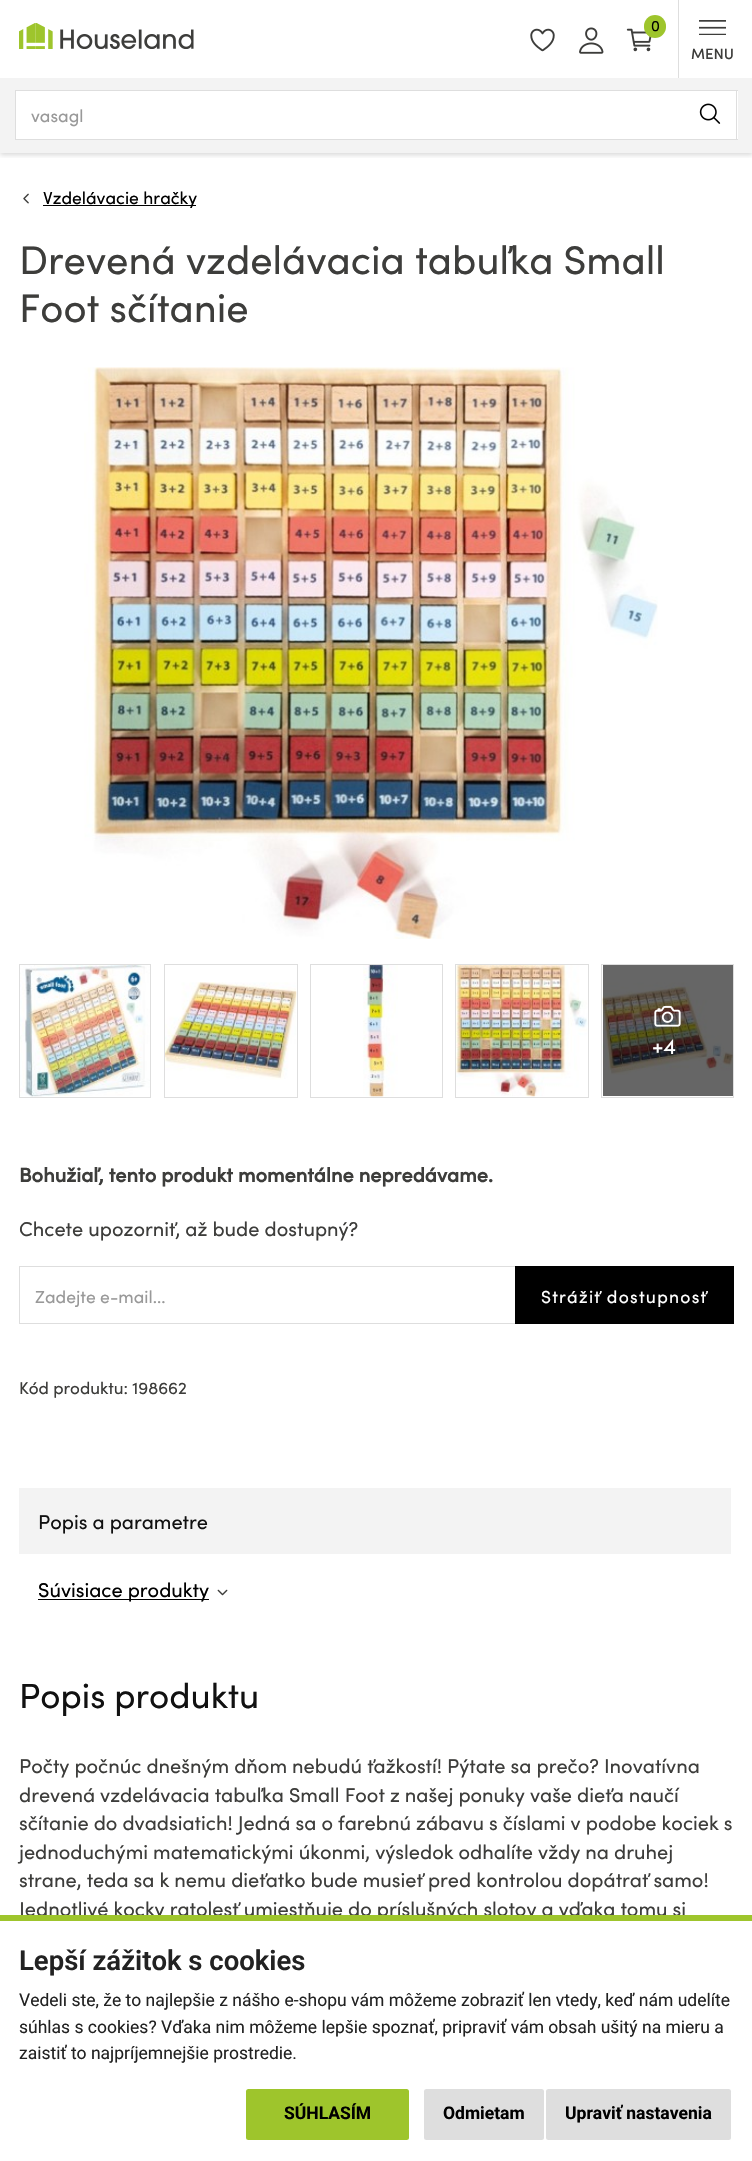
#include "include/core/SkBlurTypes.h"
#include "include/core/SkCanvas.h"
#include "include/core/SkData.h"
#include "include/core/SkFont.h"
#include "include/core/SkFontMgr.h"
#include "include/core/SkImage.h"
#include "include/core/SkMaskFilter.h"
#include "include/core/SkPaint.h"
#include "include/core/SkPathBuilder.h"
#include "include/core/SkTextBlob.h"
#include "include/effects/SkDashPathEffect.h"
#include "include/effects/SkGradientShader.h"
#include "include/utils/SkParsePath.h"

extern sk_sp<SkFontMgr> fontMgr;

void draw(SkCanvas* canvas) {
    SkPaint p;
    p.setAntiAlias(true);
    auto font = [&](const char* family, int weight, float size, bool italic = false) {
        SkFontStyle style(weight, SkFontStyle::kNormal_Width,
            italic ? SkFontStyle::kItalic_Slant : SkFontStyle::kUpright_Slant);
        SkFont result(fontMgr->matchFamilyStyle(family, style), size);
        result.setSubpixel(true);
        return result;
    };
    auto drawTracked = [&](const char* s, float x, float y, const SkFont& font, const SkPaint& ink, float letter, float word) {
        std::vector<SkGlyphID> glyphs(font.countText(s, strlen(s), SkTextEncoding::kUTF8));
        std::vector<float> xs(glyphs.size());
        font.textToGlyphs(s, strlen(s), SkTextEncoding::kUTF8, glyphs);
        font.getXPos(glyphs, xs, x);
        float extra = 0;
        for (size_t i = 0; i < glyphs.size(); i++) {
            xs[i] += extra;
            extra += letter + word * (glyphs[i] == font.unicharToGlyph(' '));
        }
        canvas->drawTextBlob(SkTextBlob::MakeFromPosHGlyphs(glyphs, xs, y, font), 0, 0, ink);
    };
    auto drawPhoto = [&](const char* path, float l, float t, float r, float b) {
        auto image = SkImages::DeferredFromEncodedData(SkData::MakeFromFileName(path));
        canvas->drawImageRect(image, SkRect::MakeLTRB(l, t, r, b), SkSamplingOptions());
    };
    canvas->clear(0xFFFFFFFF);
    p.setColor(0xFF666666);
    canvas->drawRect(SkRect::MakeLTRB(603, 965, 733, 1096), p);
    canvas->save();
    canvas->clipRect(SkRect::MakeLTRB(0, 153, 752, 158));
    p.setColor(0x26000000);
    p.setMaskFilter(SkMaskFilter::MakeBlur(kNormal_SkBlurStyle, 2.5f));
    canvas->drawRect(SkRect::MakeLTRB(0, 3, 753, 155), p);
    p.setMaskFilter(nullptr);
    canvas->restore();
    drawPhoto("media/1.png", 19, 23, 194, 49);
    drawPhoto("media/2.png", 530, 28, 555, 52);
    drawPhoto("media/3.png", 579, 27, 604, 54);
    drawPhoto("media/4.png", 626, 28, 652, 52);
    p.setColor(0xFF9EC52C);
    canvas->drawRoundRect(SkRect::MakeLTRB(644, 15, 666, 38), 11, 11, p);
    auto font1 = font("Sofia", 400, 15);
    p.setColor(0xFF000000);
    canvas->drawString("0", 651, 31, font1, p);
    p.setColor(0xFFDEDEDE);
    canvas->drawRect(SkRect::MakeLTRB(678, 0, 679, 80), p);
    drawPhoto("media/5.png", 699, 20, 726, 35);
    auto font2 = font("Sofia", 500, 15);
    p.setColor(0xFF3D3D3B);
    canvas->drawString("MENU", 691, 59, font2, p);
    {
        const struct { float l, t, r, b; SkColor color; } items[] = {
            {0, 78, 752, 153, 0xFFF3F3F3},
            {16, 91, 738, 139, 0xFFFFFFFF},
            {15, 90, 738, 91, 0xFFDEDEDE},
            {736, 90, 737, 140, 0xFFDEDEDE},
            {15, 139, 738, 140, 0xFFDEDEDE},
        };
        for (auto [l, t, r, b, color] : items) {
            p.setColor(color);
            canvas->drawRect(SkRect::MakeLTRB(l, t, r, b), p);
        }
    }
    drawPhoto("media/6.png", 699, 103, 721, 124);
    canvas->drawRect(SkRect::MakeLTRB(15, 90, 16, 140), p);
    auto font3 = font("Sofia", 400, 17.5f);
    p.setColor(0xFF999999);
    canvas->drawString("vasagl", 31, 122, font3, p);
    drawPhoto("media/7.png", 23, 193, 29, 204);
    p.setColor(0xFF000000);
    canvas->drawRect(SkRect::MakeLTRB(43, 205, 196, 206), p);
    canvas->drawString("Vzdelávacie hračky", 43, 204, font3, p);
    auto font4 = font("Sofia", 400, 40);
    p.setColor(0xFF3D3D3B);
    canvas->drawString("Drevená vzdelávacia tabuľka Small", 19, 274, font4, p);
    canvas->drawString("Foot sčítanie", 19, 322, font4, p);
    drawPhoto("media/8.png", 84, 367, 658, 939);
    p.setStyle(SkPaint::kStroke_Style);
    p.setStrokeWidth(1);
    p.setColor(0xFFDEDEDE);
    canvas->drawRect(SkRect::MakeLTRB(19.5f, 964.5f, 150.5f, 1097.5f), p);
    drawPhoto("media/9.png", 20, 965, 150, 1097);
    canvas->drawRect(SkRect::MakeLTRB(164.5f, 964.5f, 297.5f, 1097.5f), p);
    drawPhoto("media/10.png", 165, 982, 297, 1080);
    canvas->drawRect(SkRect::MakeLTRB(310.5f, 964.5f, 442.5f, 1097.5f), p);
    drawPhoto("media/11.png", 363, 965, 398, 1097);
    canvas->drawRect(SkRect::MakeLTRB(455.5f, 964.5f, 588.5f, 1097.5f), p);
    drawPhoto("media/12.png", 456, 965, 588, 1097);
    canvas->drawRect(SkRect::MakeLTRB(601.5f, 964.5f, 733.5f, 1097.5f), p);
    drawPhoto("media/13.png", 602, 982, 733, 1075);
    drawPhoto("media/14.png", 654, 1005, 681, 1027);
    auto font5 = font("Sofia", 400, 22);
    p.setStyle(SkPaint::kFill_Style);
    p.setColor(0xFFFFFFFF);
    canvas->drawString("+4", 652, 1054, font5, p);
    auto font6 = font("Sofia", 700, 20);
    p.setColor(0xFF3D3D3B);
    canvas->drawString("Bohužiaľ, tento produkt momentálne nepredávame.", 19, 1182, font6, p);
    auto font7 = font("Sofia", 400, 20);
    canvas->drawString("Chcete upozorniť, až bude dostupný?", 19, 1236, font7, p);
    p.setStyle(SkPaint::kStroke_Style);
    p.setColor(0xFFDEDEDE);
    canvas->drawRect(SkRect::MakeLTRB(19.5f, 1266.5f, 515.5f, 1323.5f), p);
    p.setStyle(SkPaint::kFill_Style);
    p.setColor(0xFF999999);
    canvas->drawString("Zadejte e-mail...", 35, 1303, font3, p);
    p.setColor(0xFF000000);
    canvas->drawRect(SkRect::MakeLTRB(515, 1266, 734, 1324), p);
    p.setColor(0xFFFFFFFF);
    drawTracked("Strážiť dostupnosť", 541, 1303, font3, p, 1.25f, 0);
    auto font8 = font("Sofia", 400, 17);
    p.setColor(0xFF3D3D3B);
    canvas->drawString("Kód produktu: 198662", 19, 1394, font8, p);
    p.setColor(0xFFF3F3F3);
    canvas->drawRect(SkRect::MakeLTRB(19, 1488, 731, 1554), p);
    p.setColor(0xFF111111);
    canvas->drawString("Popis a parametre", 38, 1529, font7, p);
    p.setColor(0xFF000000);
    canvas->drawRect(SkRect::MakeLTRB(38, 1599, 209, 1600), p);
    canvas->drawString("Súvisiace produkty", 38, 1597, font7, p);
    drawPhoto("media/15.png", 217, 1589, 228, 1596);
    auto font9 = font("Sofia", 400, 35);
    p.setColor(0xFF111111);
    canvas->drawString("Popis produktu", 19, 1708, font9, p);
    p.setColor(0xFF3D3D3B);
    {
        const struct { const char* s; float x, y; } items[] = {
            {"Počty počnúc dnešným dňom nebudú ťažkostí! Pýtate sa prečo? Inovatívna", 19, 1773},
            {"drevená vzdelávacia tabuľka Small Foot z našej ponuky vaše dieťa naučí", 19, 1802},
            {"sčítanie do dvadsiatich! Jedná sa o farebnú zábavu s číslami v podobe kociek s", 19, 1830},
            {"jednoduchými matematickými úkonmi, výsledok odhalíte vždy na druhej", 19, 1859},
            {"strane, teda sa k nemu dieťatko bude musieť pred kontrolou dopátrať samo!", 19, 1887},
            {"Jednotlivé kocky ratolesť umiestňuje do príslušných slotov a vďaka tomu si", 19, 1916},
        };
        for (auto [s, x, y] : items) {
            canvas->drawString(s, x, y, font7, p);
        }
    }
    p.setColor(0xFF9EC52C);
    canvas->drawRect(SkRect::MakeLTRB(0, 1915, 752, 1921), p);
    auto font10 = font("Roboto", 600, 27.5f);
    p.setColor(0xFF222222);
    canvas->drawString("Lepší zážitok s cookies", 19, 1970, font10, p);
    auto font11 = font("Roboto", 400, 17.5f);
    {
        const struct { const char* s; float x, y; } items[] = {
            {"Vedeli ste, že to najlepšie z nášho e-shopu vám môžeme zobraziť len vtedy, keď nám udelíte", 19, 2006},
            {"súhlas s cookies? Vďaka nim môžeme lepšie spoznať, pripraviť vám obsah ušitý na mieru a", 19, 2033},
            {"zaistiť to najpríjemnejšie prostredie.", 19, 2059},
        };
        for (auto [s, x, y] : items) {
            canvas->drawString(s, x, y, font11, p);
        }
    }
    p.setColor(0xFF9EC52C);
    canvas->drawRoundRect(SkRect::MakeLTRB(246, 2089, 409, 2140), 2.5f, 2.5f, p);
    auto font12 = font("Roboto", 700, 17.5f);
    p.setColor(0xFF000000);
    canvas->drawString("SÚHLASÍM", 284, 2119, font12, p);
    p.setColor(0xFFDEDEDE);
    canvas->drawRoundRect(SkRect::MakeLTRB(424, 2089, 544, 2140), 2.5f, 2.5f, p);
    p.setColor(0xFF000000);
    canvas->drawString("Odmietam", 443, 2119, font12, p);
    p.setColor(0xFFDEDEDE);
    canvas->drawRoundRect(SkRect::MakeLTRB(546, 2089, 731, 2140), 2.5f, 2.5f, p);
    p.setColor(0xFF000000);
    canvas->drawString("Upraviť nastavenia", 565, 2119, font12, p);
}
